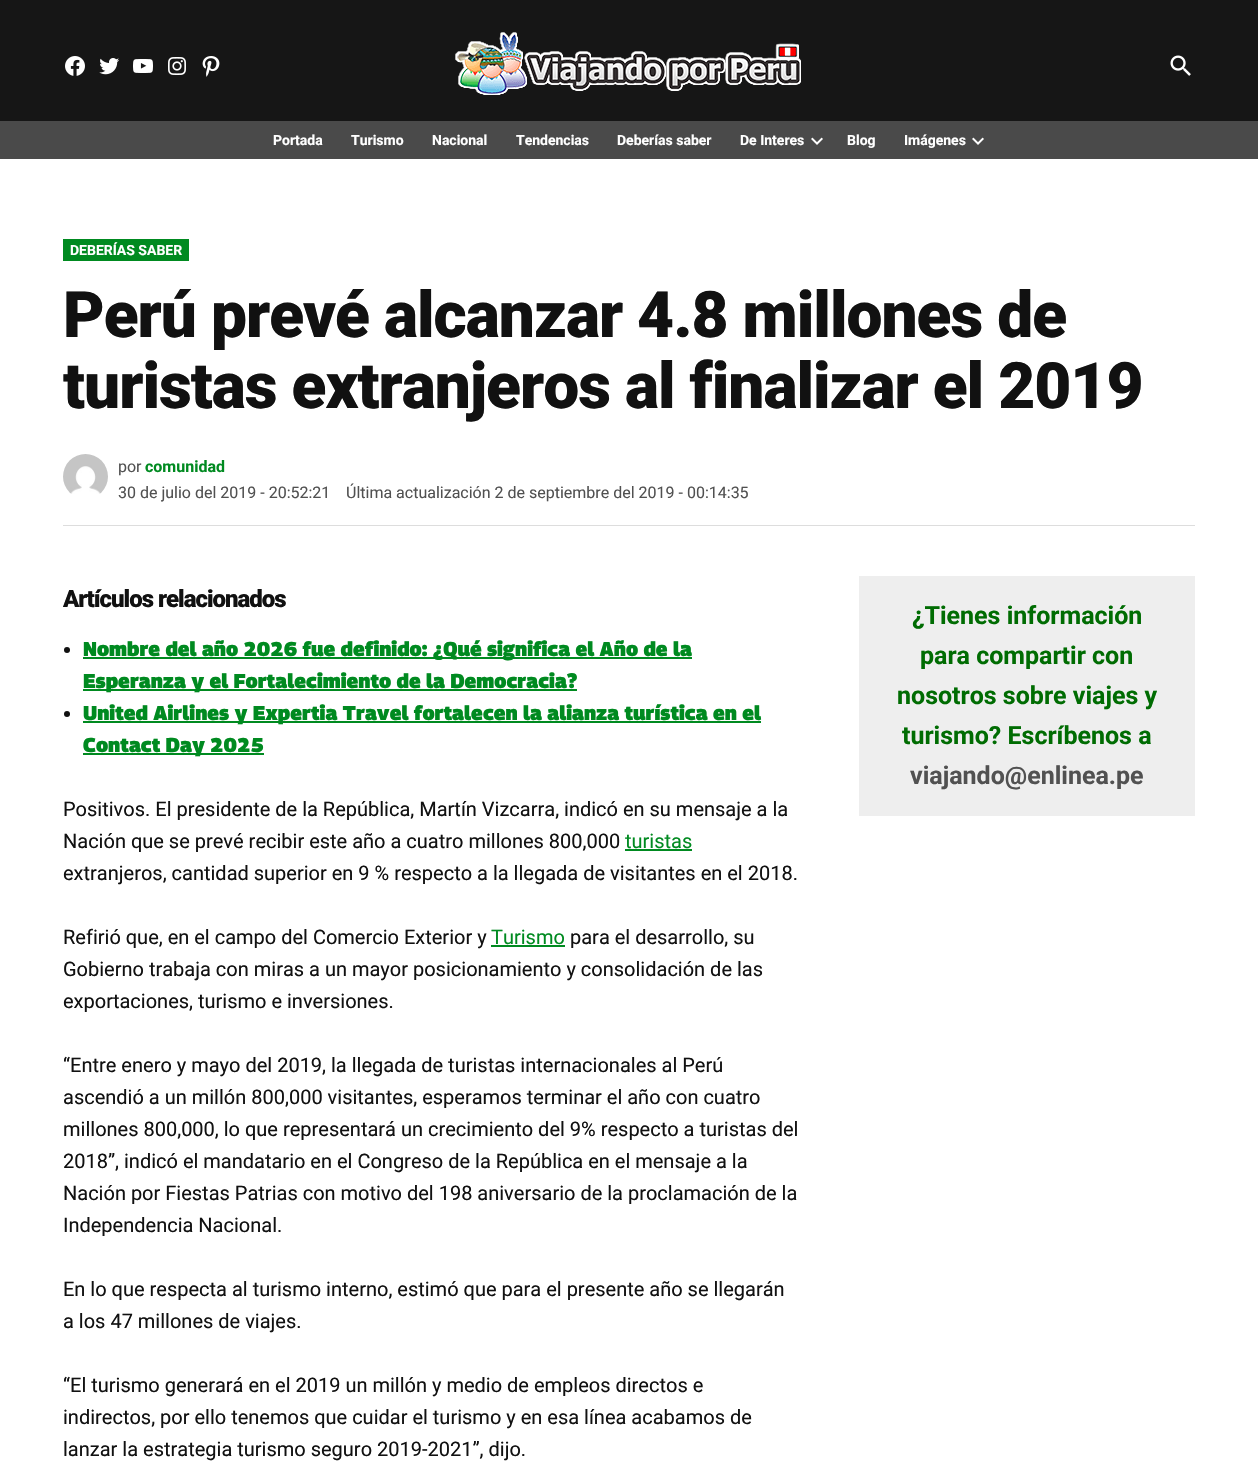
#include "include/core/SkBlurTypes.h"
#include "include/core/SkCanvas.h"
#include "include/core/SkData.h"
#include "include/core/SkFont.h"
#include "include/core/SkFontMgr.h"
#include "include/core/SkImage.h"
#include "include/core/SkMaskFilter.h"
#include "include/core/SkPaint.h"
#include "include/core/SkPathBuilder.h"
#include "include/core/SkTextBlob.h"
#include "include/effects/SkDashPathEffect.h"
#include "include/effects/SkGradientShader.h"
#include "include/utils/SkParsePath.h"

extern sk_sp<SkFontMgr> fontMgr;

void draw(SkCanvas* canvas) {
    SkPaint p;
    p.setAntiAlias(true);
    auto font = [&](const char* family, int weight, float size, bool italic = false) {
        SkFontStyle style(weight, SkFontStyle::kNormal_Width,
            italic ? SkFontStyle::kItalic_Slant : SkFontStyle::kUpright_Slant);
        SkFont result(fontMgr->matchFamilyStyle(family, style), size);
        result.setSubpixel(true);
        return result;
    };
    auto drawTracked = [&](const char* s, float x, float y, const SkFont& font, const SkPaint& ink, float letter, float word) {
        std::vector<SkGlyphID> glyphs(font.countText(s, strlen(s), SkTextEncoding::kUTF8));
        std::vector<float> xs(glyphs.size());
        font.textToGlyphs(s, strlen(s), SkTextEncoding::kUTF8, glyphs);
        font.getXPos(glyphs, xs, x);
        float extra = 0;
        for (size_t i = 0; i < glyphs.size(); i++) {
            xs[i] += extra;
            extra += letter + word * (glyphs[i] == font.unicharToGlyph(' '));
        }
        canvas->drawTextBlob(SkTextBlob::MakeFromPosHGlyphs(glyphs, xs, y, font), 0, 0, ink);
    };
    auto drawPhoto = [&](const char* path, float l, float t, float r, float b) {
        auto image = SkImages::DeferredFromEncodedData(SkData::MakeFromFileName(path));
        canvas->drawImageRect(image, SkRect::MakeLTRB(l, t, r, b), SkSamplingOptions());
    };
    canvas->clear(0xFFFFFFFF);
    p.setColor(0xFF161616);
    canvas->drawRect(SkRect::MakeLTRB(0, 0, 1258, 121), p);
    drawPhoto("media/1.png", 65, 56, 85, 76);
    drawPhoto("media/2.png", 99, 58, 119, 75);
    drawPhoto("media/3.png", 133, 59, 153, 73);
    drawPhoto("media/4.png", 168, 57, 186, 75);
    drawPhoto("media/5.png", 202, 56, 220, 77);
    drawPhoto("media/6.png", 455, 32, 801, 95);
    drawPhoto("media/7.png", 1170, 55, 1191, 76);
    p.setColor(0xFF4A4A4A);
    canvas->drawRect(SkRect::MakeLTRB(0, 121, 1258, 159), p);
    auto font1 = font("Roboto", 700, 14);
    p.setColor(0xFFFFFFFF);
    {
        const struct { const char* s; float x, y; } items[] = {
            {"Portada", 273, 145},
            {"Turismo", 351, 145},
            {"Nacional", 432, 145},
            {"Tendencias", 516, 145},
            {"Deberías saber", 617, 145},
            {"De Interes", 740, 145},
        };
        for (auto [s, x, y] : items) {
            canvas->drawString(s, x, y, font1, p);
        }
    }
    drawPhoto("media/8.png", 811, 137, 823, 145);
    canvas->drawString("Blog", 847, 145, font1, p);
    canvas->drawString("Imágenes", 904, 145, font1, p);
    drawPhoto("media/8.png", 972, 137, 984, 145);
    p.setColor(0xFFDDDDDD);
    canvas->drawRect(SkRect::MakeLTRB(63, 525, 1195, 526), p);
    p.setColor(0xFF008A20);
    canvas->drawRect(SkRect::MakeLTRB(63, 239, 189, 261), p);
    p.setColor(0xFFFFFFFF);
    canvas->drawString("DEBERÍAS SABER", 70, 255, font1, p);
    auto font2 = font("Roboto", 900, 64);
    p.setColor(0xFF111111);
    drawTracked("Perú prevé alcanzar 4.8 millones de", 63, 337, font2, p, -1, 0);
    drawTracked("turistas extranjeros al finalizar el 2019", 63, 408, font2, p, -1, 0);
    drawPhoto("media/9.png", 63, 454, 108, 494);
    auto font3 = font("Roboto", 400, 16);
    p.setColor(0xFF515151);
    canvas->drawString("por", 118, 472, font3, p);
    auto font4 = font("Roboto", 700, 16);
    p.setColor(0xFF008A20);
    canvas->drawString("comunidad", 145, 472, font4, p);
    p.setColor(0xFF515151);
    canvas->drawString("30 de julio del 2019 - 20:52:21", 118, 498, font3, p);
    canvas->drawString("Última actualización 2 de septiembre del 2019 - 00:14:35", 346, 498, font3, p);
    auto font5 = font("Roboto", 900, 24);
    p.setColor(0xFF111111);
    drawTracked("Artículos relacionados", 63, 607, font5, p, -1, 0);
    canvas->drawCircle(67, 650, 3, p);
    p.setColor(0xFF008A20);
    canvas->drawRect(SkRect::MakeLTRB(83, 657, 692, 659), p);
    auto font6 = font("Georama", 900, 20);
    canvas->drawString("Nombre del año 2026 fue definido: ¿Qué significa el Año de la", 83, 656, font6, p);
    canvas->drawRect(SkRect::MakeLTRB(83, 689, 577, 691), p);
    canvas->drawString("Esperanza y el Fortalecimiento de la Democracia?", 83, 688, font6, p);
    p.setColor(0xFF111111);
    canvas->drawCircle(67, 714, 3, p);
    p.setColor(0xFF008A20);
    canvas->drawRect(SkRect::MakeLTRB(83, 721, 761, 723), p);
    canvas->drawString("United Airlines y Expertia Travel fortalecen la alianza turística en el", 83, 720, font6, p);
    canvas->drawRect(SkRect::MakeLTRB(83, 753, 264, 755), p);
    canvas->drawString("Contact Day 2025", 83, 752, font6, p);
    auto font7 = font("Roboto", 400, 20);
    p.setColor(0xFF111111);
    canvas->drawString("Positivos. El presidente de la República, Martín Vizcarra, indicó en su mensaje a la", 63, 816, font7, p);
    canvas->drawString("Nación que se prevé recibir este año a cuatro millones 800,000", 63, 848, font7, p);
    p.setColor(0xFF008A20);
    canvas->drawString("turistas", 625, 848, font7, p);
    canvas->drawRect(SkRect::MakeLTRB(625, 849, 692, 851), p);
    p.setColor(0xFF111111);
    canvas->drawString("extranjeros, cantidad superior en 9 % respecto a la llegada de visitantes en el 2018.", 63, 880, font7, p);
    canvas->drawString("Refirió que, en el campo del Comercio Exterior y", 63, 944, font7, p);
    p.setColor(0xFF008A20);
    canvas->drawString("Turismo", 491, 944, font7, p);
    canvas->drawRect(SkRect::MakeLTRB(491, 945, 565, 947), p);
    p.setColor(0xFF111111);
    {
        const struct { const char* s; float x, y; } items[] = {
            {"para el desarrollo, su", 570, 944},
            {"Gobierno trabaja con miras a un mayor posicionamiento y consolidación de las", 63, 976},
            {"exportaciones, turismo e inversiones.", 63, 1008},
            {"“Entre enero y mayo del 2019, la llegada de turistas internacionales al Perú", 63, 1072},
            {"ascendió a un millón 800,000 visitantes, esperamos terminar el año con cuatro", 63, 1104},
            {"millones 800,000, lo que representará un crecimiento del 9% respecto a turistas del", 63, 1136},
            {"2018”, indicó el mandatario en el Congreso de la República en el mensaje a la", 63, 1168},
            {"Nación por Fiestas Patrias con motivo del 198 aniversario de la proclamación de la", 63, 1200},
            {"Independencia Nacional.", 63, 1232},
            {"En lo que respecta al turismo interno, estimó que para el presente año se llegarán", 63, 1296},
            {"a los 47 millones de viajes.", 63, 1328},
            {"“El turismo generará en el 2019 un millón y medio de empleos directos e", 63, 1392},
            {"indirectos, por ello tenemos que cuidar el turismo y en esa línea acabamos de", 63, 1424},
            {"lanzar la estrategia turismo seguro 2019-2021”, dijo.", 63, 1456},
        };
        for (auto [s, x, y] : items) {
            canvas->drawString(s, x, y, font7, p);
        }
    }
    p.setColor(0xFFEEEEEE);
    canvas->drawRect(SkRect::MakeLTRB(859, 576, 1195, 816), p);
    auto font8 = font("Roboto", 700, 25);
    p.setColor(0xFF006C02);
    {
        const struct { const char* s; float x, y; } items[] = {
            {"¿Tienes información", 912, 624},
            {"para compartir con", 920, 664},
            {"nosotros sobre viajes y", 897, 704},
            {"turismo? Escríbenos a", 902, 744},
        };
        for (auto [s, x, y] : items) {
            canvas->drawString(s, x, y, font8, p);
        }
    }
    p.setColor(0xFF515151);
    canvas->drawString("viajando@enlinea.pe", 910, 784, font8, p);
}
